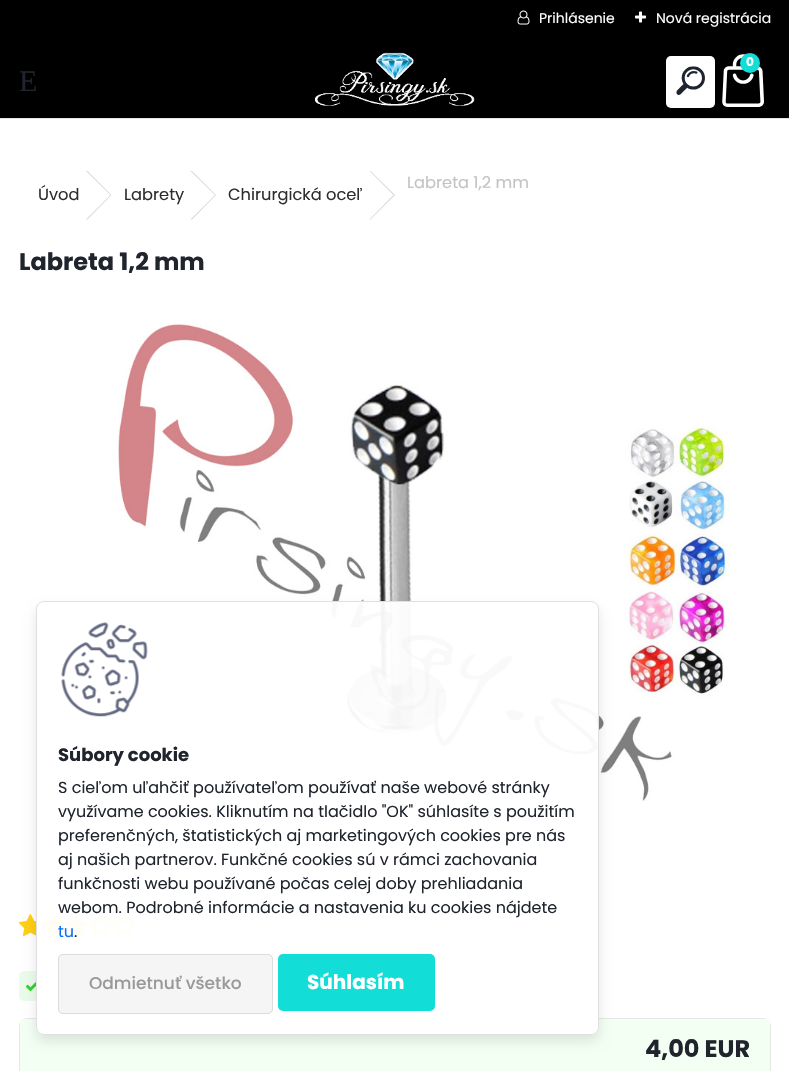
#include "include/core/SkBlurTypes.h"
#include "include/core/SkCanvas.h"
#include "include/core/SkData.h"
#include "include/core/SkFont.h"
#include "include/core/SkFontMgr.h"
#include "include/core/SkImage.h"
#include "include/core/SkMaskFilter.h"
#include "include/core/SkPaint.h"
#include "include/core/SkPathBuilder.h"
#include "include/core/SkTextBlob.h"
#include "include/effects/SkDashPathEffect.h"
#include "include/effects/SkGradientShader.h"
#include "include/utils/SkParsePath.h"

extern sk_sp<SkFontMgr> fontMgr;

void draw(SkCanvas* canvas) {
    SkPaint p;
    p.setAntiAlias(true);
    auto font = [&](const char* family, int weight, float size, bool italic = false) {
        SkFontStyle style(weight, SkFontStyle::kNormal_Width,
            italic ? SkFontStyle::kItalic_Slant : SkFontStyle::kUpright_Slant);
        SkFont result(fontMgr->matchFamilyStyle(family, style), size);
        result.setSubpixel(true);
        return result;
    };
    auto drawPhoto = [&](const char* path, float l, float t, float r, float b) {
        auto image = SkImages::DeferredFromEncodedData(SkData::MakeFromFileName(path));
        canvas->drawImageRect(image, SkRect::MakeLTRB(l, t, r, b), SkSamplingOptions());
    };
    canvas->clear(0xFFFFFFFF);
    p.setColor(0xFF000000);
    canvas->drawRect(SkRect::MakeLTRB(0, 0, 789, 118), p);
    drawPhoto("media/1.png", 517, 10, 530, 25);
    auto font1 = font("Poppins", 400, 14);
    p.setColor(0xFFFFFFFF);
    canvas->drawString("Prihlásenie", 539, 23, font1, p);
    drawPhoto("media/2.png", 635, 11, 646, 23);
    canvas->drawString("Nová registrácia", 656, 23, font1, p);
    p.setColor(0xFFE6E6E6);
    canvas->drawRect(SkRect::MakeLTRB(0, 118, 789, 119), p);
    drawPhoto("media/3.png", 315, 52, 475, 106);
    p.setColor(0xFFFFFFFF);
    canvas->drawRoundRect(SkRect::MakeLTRB(666, 56, 715, 108), 5, 5, p);
    drawPhoto("media/4.png", 676, 66, 705, 95);
    drawPhoto("media/5.png", 722, 54, 764, 107);
    p.setColor(0xFF12DDD6);
    canvas->drawCircle(750, 63, 10, p);
    auto font2 = font("Poppins", 700, 12);
    p.setColor(0xFFFFFFFF);
    canvas->drawString("0", 746, 66, font2, p);
    auto font3 = font("Liberation Serif", 400, 30);
    p.setColor(0xFF1F242D);
    canvas->drawString("E", 19, 91, font3, p);
    auto font4 = font("Poppins", 400, 16.25f);
    p.setColor(0xFF2D2D2D);
    canvas->drawString("Úvod", 38, 200, font4, p);
    p.setColor(0xFFD7D7D7);
    canvas->drawPath(SkPathBuilder().moveTo(86, 171).lineTo(87.5f, 171).lineTo(111.5f, 195).lineTo(110.5f, 195).close().moveTo(110.5f, 195).lineTo(111.5f, 195).lineTo(87.5f, 219.5f).lineTo(86, 219.5f).close().detach(), p);
    p.setColor(0xFF2D2D2D);
    canvas->drawString("Labrety", 124, 200, font4, p);
    p.setColor(0xFFD7D7D7);
    canvas->drawPath(SkPathBuilder().moveTo(190.5f, 171).lineTo(192, 171).lineTo(216, 195).lineTo(215, 195).close().moveTo(215, 195).lineTo(216, 195).lineTo(192, 219.5f).lineTo(190.5f, 219.5f).close().detach(), p);
    p.setColor(0xFF2D2D2D);
    canvas->drawString("Chirurgická oceľ", 228, 200, font4, p);
    p.setColor(0xFFD7D7D7);
    canvas->drawPath(SkPathBuilder().moveTo(369.5f, 171).lineTo(370.5f, 171).lineTo(395, 195).lineTo(393.5f, 195).close().moveTo(393.5f, 195).lineTo(395, 195).lineTo(370.5f, 219.5f).lineTo(369.5f, 219.5f).close().detach(), p);
    p.setColor(0xFFC3C3C3);
    canvas->drawString("Labreta 1,2 mm", 407, 188, font4, p);
    auto font5 = font("Poppins", 700, 24);
    p.setColor(0xFF1F242D);
    canvas->drawString("Labreta 1,2 mm", 19, 270, font5, p);
    drawPhoto("media/6.png", 117, 323, 730, 801);
    drawPhoto("media/7.png", 18, 914, 42, 937);
    drawPhoto("media/8.png", 42, 914, 66, 937);
    drawPhoto("media/9.png", 65, 914, 89, 937);
    drawPhoto("media/10.png", 88, 914, 112, 937);
    drawPhoto("media/11.png", 112, 914, 136, 937);
    p.setColor(0xFFEBFBEA);
    canvas->drawRoundRect(SkRect::MakeLTRB(19, 971, 125, 1001), 5, 5, p);
    drawPhoto("media/12.png", 26, 982, 38, 992);
    p.setStyle(SkPaint::kStroke_Style);
    p.setStrokeWidth(1);
    p.setColor(0xFFE6E6E6);
    canvas->drawRoundRect(SkRect::MakeLTRB(19.5f, 1018.5f, 770.5f, 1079.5f), 7.5f, 7.5f, p);
    p.setStyle(SkPaint::kFill_Style);
    p.setColor(0xFFF2FFF2);
    canvas->drawRect(SkRect::MakeLTRB(20, 1019, 770, 1071), p);
    p.setColor(0xFF1F242D);
    canvas->drawString("4,00 EUR", 645, 1057, font5, p);
    canvas->save();
    canvas->clipPath(SkPathBuilder(SkPathFillType::kEvenOdd).moveTo(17, 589).lineTo(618, 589).lineTo(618, 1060).lineTo(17, 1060).close().moveTo(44, 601).lineTo(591, 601).cubicTo(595.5f, 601, 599, 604.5f, 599, 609).lineTo(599, 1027).cubicTo(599, 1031.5f, 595.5f, 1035, 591, 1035).lineTo(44, 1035).cubicTo(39.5f, 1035, 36, 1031.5f, 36, 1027).lineTo(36, 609).cubicTo(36, 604.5f, 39.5f, 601, 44, 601).close().detach(), true);
    p.setColor(0x1A000000);
    p.setMaskFilter(SkMaskFilter::MakeBlur(kNormal_SkBlurStyle, 6));
    canvas->drawRoundRect(SkRect::MakeLTRB(36, 608, 599, 1041), 8, 8, p);
    p.setMaskFilter(nullptr);
    canvas->restore();
    p.setColor(0xF2FFFFFF);
    canvas->drawRoundRect(SkRect::MakeLTRB(36.5f, 601.5f, 598.5f, 1034.5f), 7.5f, 7.5f, p);
    p.setStyle(SkPaint::kStroke_Style);
    p.setColor(0xFFE0E0E0);
    canvas->drawRoundRect(SkRect::MakeLTRB(36.5f, 601.5f, 598.5f, 1034.5f), 7.5f, 7.5f, p);
    drawPhoto("media/13.png", 61, 622, 148, 717);
    auto font6 = font("Poppins", 700, 18);
    p.setStyle(SkPaint::kFill_Style);
    p.setColor(0xFF1F242D);
    canvas->drawString("Súbory cookie", 58, 761, font6, p);
    auto font7 = font("Poppins", 400, 16);
    {
        const struct { const char* s; float x, y; } items[] = {
            {"S cieľom uľahčiť používateľom používať naše webové stránky", 58, 793},
            {"využívame cookies. Kliknutím na tlačidlo \"OK\" súhlasíte s použitím", 58, 817},
            {"preferenčných, štatistických aj marketingových cookies pre nás", 58, 841},
            {"aj našich partnerov. Funkčné cookies sú v rámci zachovania", 58, 865},
            {"funkčnosti webu používané počas celej doby prehliadania", 58, 889},
            {"webom. Podrobné informácie a nastavenia ku cookies nájdete", 58, 913},
        };
        for (auto [s, x, y] : items) {
            canvas->drawString(s, x, y, font7, p);
        }
    }
    p.setColor(0xFF0D6EFD);
    canvas->drawString("tu", 58, 937, font7, p);
    p.setColor(0xFF1F242D);
    canvas->drawString(".", 74, 937, font7, p);
    p.setColor(0xFFF5F5F5);
    canvas->drawRoundRect(SkRect::MakeLTRB(58, 954, 273, 1014), 5, 5, p);
    p.setStyle(SkPaint::kStroke_Style);
    p.setColor(0x1A000000);
    canvas->drawRoundRect(SkRect::MakeLTRB(58.5f, 954.5f, 272.5f, 1013.5f), 4.5f, 4.5f, p);
    auto font8 = font("Poppins", 500, 17);
    p.setStyle(SkPaint::kFill_Style);
    p.setColor(0xFF999999);
    canvas->drawString("Odmietnuť všetko", 89, 989, font8, p);
    p.setColor(0xFF12DDD6);
    canvas->drawRoundRect(SkRect::MakeLTRB(278, 954, 435, 1011), 5, 5, p);
    auto font9 = font("Poppins", 700, 20);
    p.setColor(0xFFFFFFFF);
    canvas->drawString("Súhlasím", 307, 989, font9, p);
}
